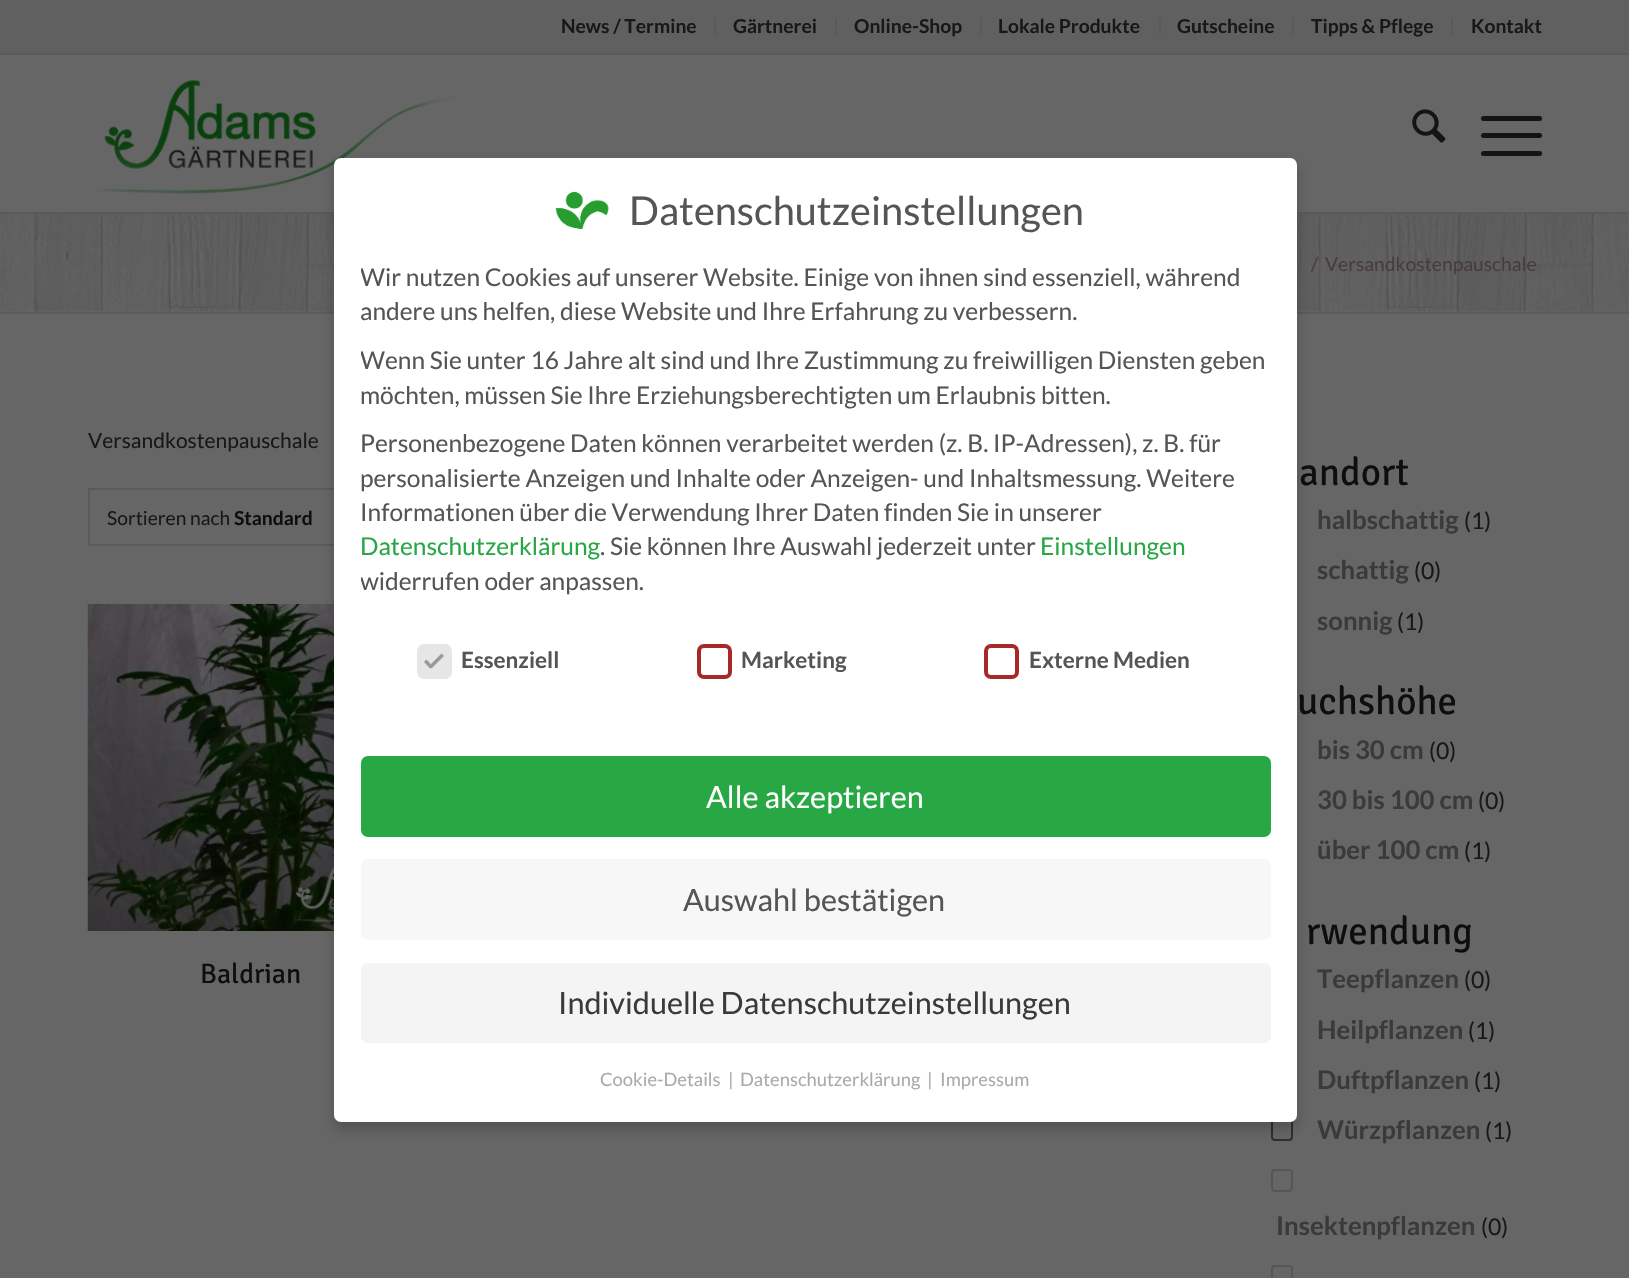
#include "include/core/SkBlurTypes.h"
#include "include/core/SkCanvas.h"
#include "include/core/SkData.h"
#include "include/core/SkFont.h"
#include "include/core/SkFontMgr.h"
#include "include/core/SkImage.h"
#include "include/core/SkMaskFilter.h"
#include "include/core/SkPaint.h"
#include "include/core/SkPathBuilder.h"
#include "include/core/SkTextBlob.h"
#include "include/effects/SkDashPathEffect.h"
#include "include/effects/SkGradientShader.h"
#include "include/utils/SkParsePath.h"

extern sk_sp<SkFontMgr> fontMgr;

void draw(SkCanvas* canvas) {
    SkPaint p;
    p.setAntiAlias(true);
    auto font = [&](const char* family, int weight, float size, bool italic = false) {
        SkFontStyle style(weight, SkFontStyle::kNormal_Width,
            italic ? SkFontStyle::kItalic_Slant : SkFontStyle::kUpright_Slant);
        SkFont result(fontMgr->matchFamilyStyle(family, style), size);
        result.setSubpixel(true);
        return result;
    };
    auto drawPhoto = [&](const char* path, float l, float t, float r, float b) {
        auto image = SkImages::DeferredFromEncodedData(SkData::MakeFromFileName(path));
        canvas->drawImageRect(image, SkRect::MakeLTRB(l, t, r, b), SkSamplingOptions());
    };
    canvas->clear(0xFF666666);
    {
        const struct { float l, t, r, b; SkColor color; } items[] = {
            {0, 0, 1629, 53, 0xFF606060},
            {0, 53, 1629, 55, 0xFF5A5A5A},
            {714, 18, 716, 35, 0xFF5A5A5A},
        };
        for (auto [l, t, r, b, color] : items) {
            p.setColor(color);
            canvas->drawRect(SkRect::MakeLTRB(l, t, r, b), p);
        }
    }
    auto font1 = font("Lato", 700, 19.25f);
    p.setColor(0xFF181818);
    canvas->drawString("News / Termine", 561, 33, font1, p);
    p.setColor(0xFF5A5A5A);
    canvas->drawRect(SkRect::MakeLTRB(835, 18, 837, 35), p);
    p.setColor(0xFF181818);
    canvas->drawString("Gärtnerei", 733, 33, font1, p);
    p.setColor(0xFF5A5A5A);
    canvas->drawRect(SkRect::MakeLTRB(980, 18, 982, 35), p);
    p.setColor(0xFF181818);
    canvas->drawString("Online-Shop", 854, 33, font1, p);
    p.setColor(0xFF5A5A5A);
    canvas->drawRect(SkRect::MakeLTRB(1159, 18, 1161, 35), p);
    p.setColor(0xFF181818);
    canvas->drawString("Lokale Produkte", 998, 33, font1, p);
    p.setColor(0xFF5A5A5A);
    canvas->drawRect(SkRect::MakeLTRB(1292, 18, 1294, 35), p);
    p.setColor(0xFF181818);
    canvas->drawString("Gutscheine", 1177, 33, font1, p);
    p.setColor(0xFF5A5A5A);
    canvas->drawRect(SkRect::MakeLTRB(1451, 18, 1453, 35), p);
    p.setColor(0xFF181818);
    canvas->drawString("Tipps & Pflege", 1311, 33, font1, p);
    canvas->drawString("Kontakt", 1471, 33, font1, p);
    p.setColor(0xFF5A5A5A);
    canvas->drawRect(SkRect::MakeLTRB(0, 212, 1629, 214), p);
    drawPhoto("media/1.png", 98, 80, 458, 194);
    drawPhoto("media/2.png", 1412, 109, 1446, 143);
    p.setColor(0xFF141414);
    canvas->drawRoundRect(SkRect::MakeLTRB(1481, 133, 1542, 138), 2.5f, 2.5f, p);
    canvas->drawRoundRect(SkRect::MakeLTRB(1481, 116, 1542, 121), 2.5f, 2.5f, p);
    canvas->drawRoundRect(SkRect::MakeLTRB(1481, 151, 1542, 156), 2.5f, 2.5f, p);
    drawPhoto("media/3.png", 0, 214, 1629, 312);
    auto font2 = font("Lato", 400, 19.25f);
    p.setColor(0xFF483B3B);
    canvas->drawString("/", 1311, 271, font2, p);
    canvas->drawString("Versandkostenpauschale", 1325, 271, font2, p);
    p.setColor(0xFF5A5A5A);
    canvas->drawRect(SkRect::MakeLTRB(0, 312, 1629, 314), p);
    auto font3 = font("Lato", 400, 21);
    p.setColor(0xFF181818);
    canvas->drawString("Versandkostenpauschale", 88, 448, font3, p);
    p.setStyle(SkPaint::kStroke_Style);
    p.setStrokeWidth(2);
    p.setColor(0xFF5A5A5A);
    canvas->drawRect(SkRect::MakeLTRB(89, 489, 384, 545), p);
    p.setStyle(SkPaint::kFill_Style);
    p.setColor(0xFF181818);
    canvas->drawString("Sortieren nach", 107, 525, font2, p);
    p.setColor(0xFF0E0E0E);
    canvas->drawString("Standard", 234, 525, font1, p);
    drawPhoto("media/4.png", 87, 603, 334, 931);
    auto font4 = font("Signika Negative", 400, 28);
    canvas->drawString("Baldrian", 200, 983, font4, p);
    auto font5 = font("Signika Negative", 400, 39);
    canvas->drawString("andort", 1299, 485, font5, p);
    auto font6 = font("Lato", 700, 25.75f);
    p.setColor(0xFF3A3A3A);
    canvas->drawString("halbschattig", 1317, 529, font6, p);
    auto font7 = font("Lato", 400, 23);
    p.setColor(0xFF181818);
    canvas->drawString("(1)", 1464, 529, font7, p);
    p.setColor(0xFF3A3A3A);
    canvas->drawString("schattig", 1317, 579, font6, p);
    p.setColor(0xFF181818);
    canvas->drawString("(0)", 1414, 579, font7, p);
    p.setColor(0xFF3A3A3A);
    canvas->drawString("sonnig", 1317, 630, font6, p);
    p.setColor(0xFF181818);
    canvas->drawString("(1)", 1397, 630, font7, p);
    p.setColor(0xFF0E0E0E);
    canvas->drawString("uchshöhe", 1297, 714, font5, p);
    p.setColor(0xFF3A3A3A);
    canvas->drawString("bis 30 cm", 1317, 759, font6, p);
    p.setColor(0xFF181818);
    canvas->drawString("(0)", 1429, 759, font7, p);
    p.setColor(0xFF3A3A3A);
    canvas->drawString("30 bis 100 cm", 1317, 809, font6, p);
    p.setColor(0xFF181818);
    canvas->drawString("(0)", 1478, 809, font7, p);
    p.setColor(0xFF3A3A3A);
    canvas->drawString("über 100 cm", 1317, 859, font6, p);
    p.setColor(0xFF181818);
    canvas->drawString("(1)", 1464, 859, font7, p);
    p.setColor(0xFF0E0E0E);
    canvas->drawString("rwendung", 1306, 944, font5, p);
    p.setColor(0xFF3A3A3A);
    canvas->drawString("Teepflanzen", 1317, 988, font6, p);
    p.setColor(0xFF181818);
    canvas->drawString("(0)", 1464, 988, font7, p);
    p.setColor(0xFF3A3A3A);
    canvas->drawString("Heilpflanzen", 1317, 1039, font6, p);
    p.setColor(0xFF181818);
    canvas->drawString("(1)", 1468, 1039, font7, p);
    p.setColor(0xFF3A3A3A);
    canvas->drawString("Duftpflanzen", 1317, 1089, font6, p);
    p.setColor(0xFF181818);
    canvas->drawString("(1)", 1474, 1089, font7, p);
    p.setStyle(SkPaint::kStroke_Style);
    p.setColor(0xFF2F2F2F);
    canvas->drawRoundRect(SkRect::MakeLTRB(1272, 1119, 1292, 1140), 3, 3, p);
    p.setStyle(SkPaint::kFill_Style);
    p.setColor(0xFF3A3A3A);
    canvas->drawString("Würzpflanzen", 1317, 1139, font6, p);
    p.setColor(0xFF181818);
    canvas->drawString("(1)", 1485, 1139, font7, p);
    p.setStyle(SkPaint::kStroke_Style);
    p.setColor(0xFF565656);
    canvas->drawRoundRect(SkRect::MakeLTRB(1272, 1170, 1292, 1191), 3, 3, p);
    p.setStyle(SkPaint::kFill_Style);
    p.setColor(0xFF3A3A3A);
    canvas->drawString("Insektenpflanzen", 1276, 1235, font6, p);
    p.setColor(0xFF181818);
    canvas->drawString("(0)", 1481, 1235, font7, p);
    p.setStyle(SkPaint::kStroke_Style);
    p.setColor(0xFF565656);
    canvas->drawRoundRect(SkRect::MakeLTRB(1272, 1266, 1292, 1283), 3, 3, p);
    p.setStyle(SkPaint::kFill_Style);
    p.setColor(0x33000000);
    p.setMaskFilter(SkMaskFilter::MakeBlur(kNormal_SkBlurStyle, 7));
    canvas->drawRoundRect(SkRect::MakeLTRB(334, 165, 1297, 1129), 7, 7, p);
    p.setMaskFilter(nullptr);
    p.setColor(0xFFFFFFFF);
    canvas->drawRoundRect(SkRect::MakeLTRB(334, 158, 1297, 1122), 7, 7, p);
    drawPhoto("media/5.png", 555, 191, 609, 229);
    auto font8 = font("Lato", 400, 39.75f);
    p.setColor(0xFF555555);
    canvas->drawString("Datenschutzeinstellungen", 629, 225, font8, p);
    canvas->save();
    canvas->clipRect(SkRect::MakeLTRB(361, 259, 1271, 599));
    auto font9 = font("Lato", 400, 24.5f);
    canvas->drawString("Wir nutzen Cookies auf unserer Website. Einige von ihnen sind essenziell, während", 360, 286, font9, p);
    canvas->restore();
    canvas->drawString("andere uns helfen, diese Website und Ihre Erfahrung zu verbessern.", 360, 320, font9, p);
    canvas->save();
    canvas->clipRect(SkRect::MakeLTRB(361, 259, 1271, 599));
    canvas->drawString("Wenn Sie unter 16 Jahre alt sind und Ihre Zustimmung zu freiwilligen Diensten geben", 360, 369, font9, p);
    canvas->restore();
    {
        const struct { const char* s; float x, y; } items[] = {
            {"möchten, müssen Sie Ihre Erziehungsberechtigten um Erlaubnis bitten.", 360, 404},
            {"Personenbezogene Daten können verarbeitet werden (z. B. IP-Adressen), z. B. für", 360, 452},
            {"personalisierte Anzeigen und Inhalte oder Anzeigen- und Inhaltsmessung. Weitere", 360, 487},
            {"Informationen über die Verwendung Ihrer Daten finden Sie in unserer", 360, 521},
        };
        for (auto [s, x, y] : items) {
            canvas->drawString(s, x, y, font9, p);
        }
    }
    p.setColor(0xFF28A745);
    canvas->drawString("Datenschutzerklärung", 360, 555, font9, p);
    p.setColor(0xFF555555);
    canvas->drawString(". Sie können Ihre Auswahl jederzeit unter", 600, 555, font9, p);
    p.setColor(0xFF28A745);
    canvas->drawString("Einstellungen", 1040, 555, font9, p);
    canvas->save();
    canvas->clipRect(SkRect::MakeLTRB(361, 259, 1271, 599));
    p.setColor(0xFF555555);
    canvas->drawString("widerrufen oder anpassen.", 360, 590, font9, p);
    canvas->restore();
    p.setColor(0xFFE6E6E6);
    canvas->drawRoundRect(SkRect::MakeLTRB(419, 646, 450, 677), 5, 5, p);
    p.setStyle(SkPaint::kStroke_Style);
    p.setStrokeWidth(4);
    canvas->drawRoundRect(SkRect::MakeLTRB(419, 646, 450, 677), 5, 5, p);
    p.setStyle(SkPaint::kFill_Style);
    p.setColor(0xFF999999);
    canvas->drawPath(SkPathBuilder().moveTo(441.5f, 653.5f).lineTo(444, 656).lineTo(431.5f, 668.5f).lineTo(429, 666).close().detach(), p);
    canvas->drawPath(SkPathBuilder().moveTo(426.5f, 659.5f).lineTo(432.5f, 666).lineTo(430, 668.5f).lineTo(424, 662).close().detach(), p);
    auto font10 = font("Lato", 700, 22.5f);
    p.setColor(0xFF555555);
    canvas->drawString("Essenziell", 461, 668, font10, p);
    p.setStyle(SkPaint::kStroke_Style);
    p.setColor(0xFFA72828);
    canvas->drawRoundRect(SkRect::MakeLTRB(699, 646, 730, 677), 5, 5, p);
    p.setStyle(SkPaint::kFill_Style);
    p.setColor(0xFF555555);
    canvas->drawString("Marketing", 741, 668, font10, p);
    p.setStyle(SkPaint::kStroke_Style);
    p.setColor(0xFFA72828);
    canvas->drawRoundRect(SkRect::MakeLTRB(986, 646, 1017, 677), 5, 5, p);
    p.setStyle(SkPaint::kFill_Style);
    p.setColor(0xFF555555);
    canvas->drawString("Externe Medien", 1029, 668, font10, p);
    p.setColor(0xFF28A745);
    canvas->drawRoundRect(SkRect::MakeLTRB(361, 756, 1271, 837), 7, 7, p);
    auto font11 = font("Lato", 400, 30.6f);
    p.setColor(0xFFFFFFFF);
    canvas->drawString("Alle akzeptieren", 706, 808, font11, p);
    p.setColor(0xFFF7F7F7);
    canvas->drawRoundRect(SkRect::MakeLTRB(361, 859, 1271, 940), 7, 7, p);
    p.setColor(0xFF555555);
    canvas->drawString("Auswahl bestätigen", 683, 911, font11, p);
    p.setColor(0xFFF4F4F4);
    canvas->drawRoundRect(SkRect::MakeLTRB(361, 963, 1271, 1043), 7, 7, p);
    p.setColor(0xFF3A3A3A);
    canvas->drawString("Individuelle Datenschutzeinstellungen", 558, 1014, font11, p);
    auto font12 = font("Lato", 400, 18.4f);
    p.setColor(0xFFAAAAAA);
    {
        const struct { const char* s; float x, y; } items[] = {
            {"Cookie-Details", 600, 1086},
            {"|", 728, 1086},
            {"Datenschutzerklärung", 740, 1086},
            {"|", 927, 1086},
            {"Impressum", 940, 1086},
        };
        for (auto [s, x, y] : items) {
            canvas->drawString(s, x, y, font12, p);
        }
    }
}
